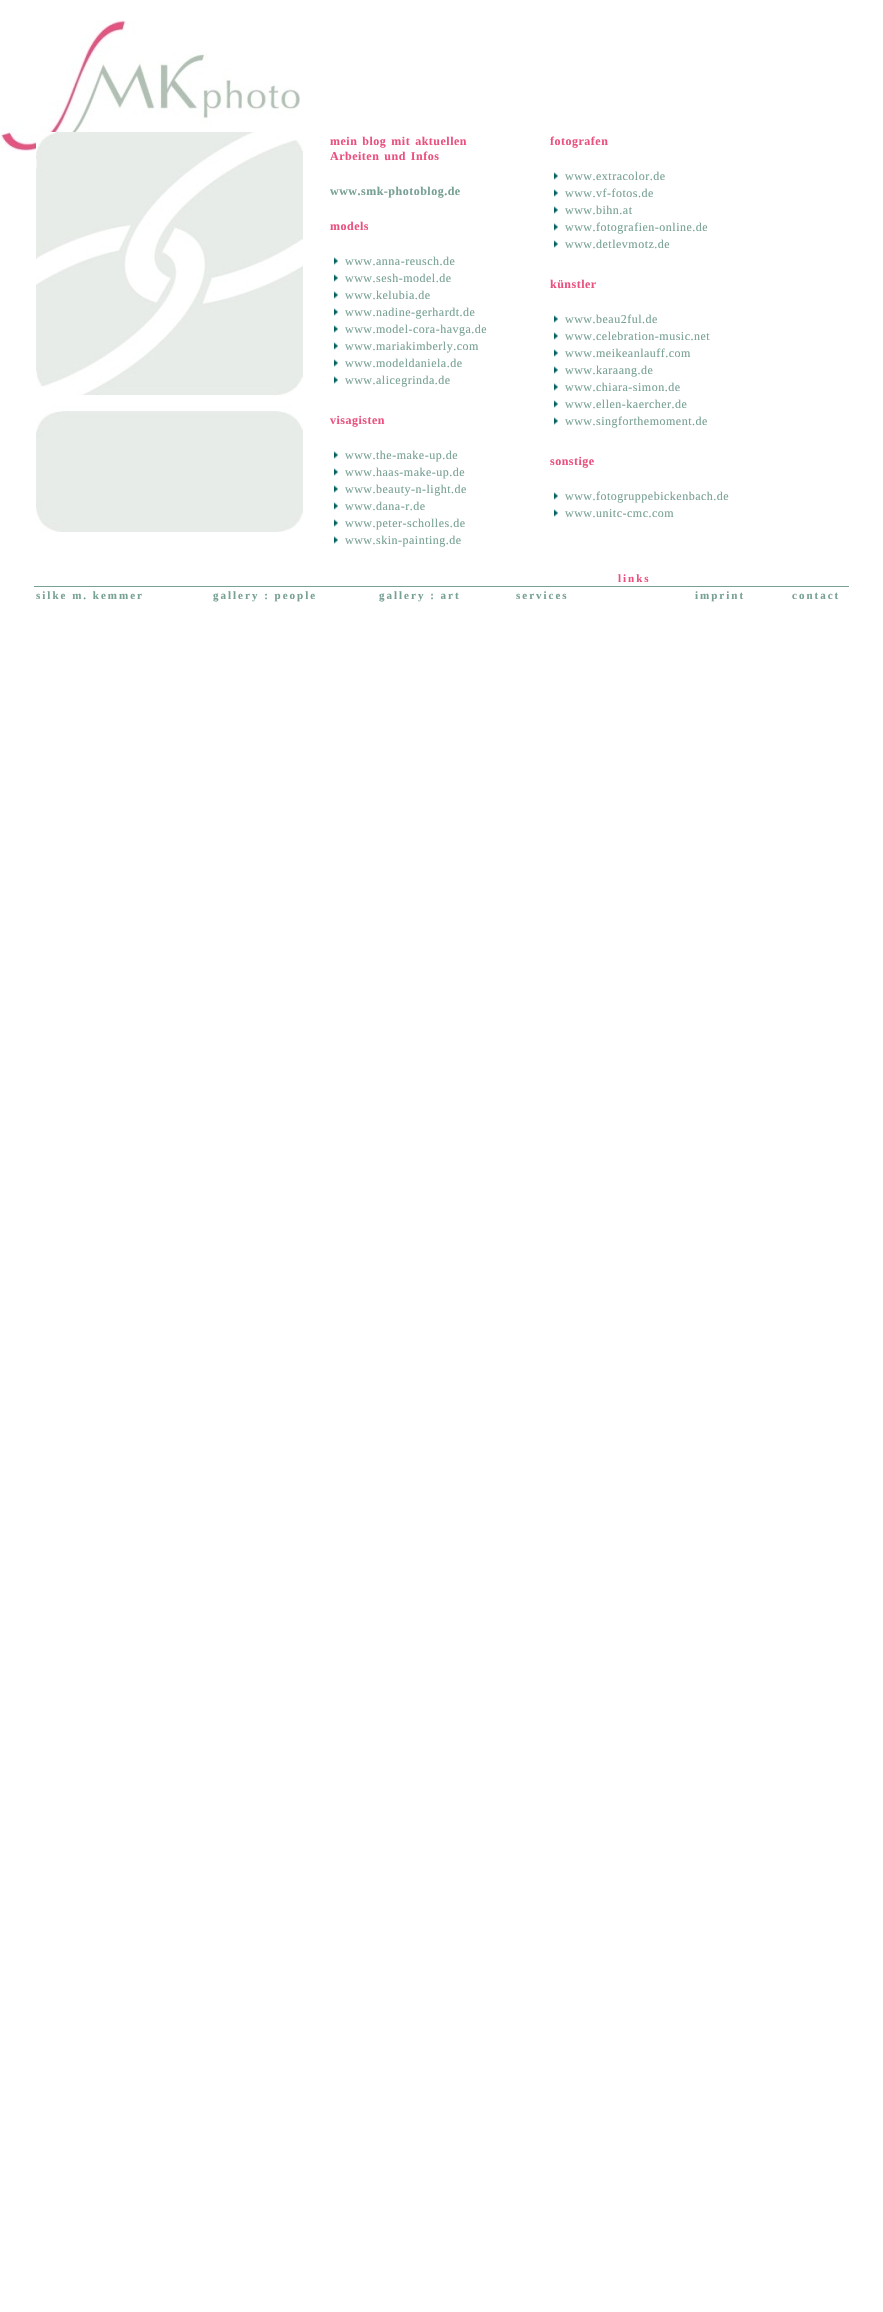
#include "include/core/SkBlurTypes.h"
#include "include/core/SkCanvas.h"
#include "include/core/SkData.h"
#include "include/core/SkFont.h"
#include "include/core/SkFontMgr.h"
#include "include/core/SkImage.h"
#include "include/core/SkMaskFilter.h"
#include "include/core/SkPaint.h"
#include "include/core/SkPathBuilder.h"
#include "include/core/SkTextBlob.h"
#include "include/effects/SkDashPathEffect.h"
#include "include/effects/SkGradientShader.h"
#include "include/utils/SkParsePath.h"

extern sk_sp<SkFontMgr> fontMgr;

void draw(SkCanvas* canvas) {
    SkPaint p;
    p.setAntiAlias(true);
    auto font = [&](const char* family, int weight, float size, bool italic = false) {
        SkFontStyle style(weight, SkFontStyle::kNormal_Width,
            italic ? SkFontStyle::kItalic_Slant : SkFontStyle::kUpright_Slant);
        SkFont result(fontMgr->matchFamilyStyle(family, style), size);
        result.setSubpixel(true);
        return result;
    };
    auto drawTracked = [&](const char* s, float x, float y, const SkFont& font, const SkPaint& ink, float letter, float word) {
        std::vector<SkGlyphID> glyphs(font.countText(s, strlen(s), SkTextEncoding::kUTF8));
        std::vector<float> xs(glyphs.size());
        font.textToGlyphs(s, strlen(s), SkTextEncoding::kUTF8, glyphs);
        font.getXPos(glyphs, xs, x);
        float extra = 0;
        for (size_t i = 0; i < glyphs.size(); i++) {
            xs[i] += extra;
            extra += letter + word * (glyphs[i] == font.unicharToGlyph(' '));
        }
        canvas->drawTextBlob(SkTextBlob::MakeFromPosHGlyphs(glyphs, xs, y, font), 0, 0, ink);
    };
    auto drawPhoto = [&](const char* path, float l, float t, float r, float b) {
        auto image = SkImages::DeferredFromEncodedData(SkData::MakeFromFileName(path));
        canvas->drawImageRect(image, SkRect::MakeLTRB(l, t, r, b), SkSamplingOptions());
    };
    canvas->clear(0xFFFFFFFF);
    drawPhoto("media/1.png", 0, 20, 300, 151);
    drawPhoto("media/2.png", 36, 132, 303, 532);
    auto font1 = font("Liberation Serif", 700, 12);
    p.setColor(0xFFEA517F);
    drawTracked("mein blog mit aktuellen", 330, 145, font1, p, 0.5f, 1.5f);
    drawTracked("Arbeiten und Infos", 330, 160, font1, p, 0.5f, 1.5f);
    p.setColor(0xFF78A196);
    drawTracked("www.smk-photoblog.de", 330, 195, font1, p, 0.5f, 0);
    p.setColor(0xFFEA517F);
    drawTracked("models", 330, 230, font1, p, 0.5f, 0);
    drawPhoto("media/3.png", 334, 257, 338, 265);
    auto font2 = font("Liberation Serif", 400, 12);
    p.setColor(0xFF78A196);
    drawTracked("www.anna-reusch.de", 345, 265, font2, p, 0.5f, 0);
    drawPhoto("media/3.png", 334, 274, 338, 282);
    drawTracked("www.sesh-model.de", 345, 282, font2, p, 0.5f, 0);
    drawPhoto("media/3.png", 334, 291, 338, 299);
    drawTracked("www.kelubia.de", 345, 299, font2, p, 0.5f, 0);
    drawPhoto("media/3.png", 334, 308, 338, 316);
    drawTracked("www.nadine-gerhardt.de", 345, 316, font2, p, 0.5f, 0);
    drawPhoto("media/3.png", 334, 325, 338, 333);
    drawTracked("www.model-cora-havga.de", 345, 333, font2, p, 0.5f, 0);
    drawPhoto("media/3.png", 334, 342, 338, 350);
    drawTracked("www.mariakimberly.com", 345, 350, font2, p, 0.5f, 0);
    drawPhoto("media/3.png", 334, 359, 338, 367);
    drawTracked("www.modeldaniela.de", 345, 367, font2, p, 0.5f, 0);
    drawPhoto("media/3.png", 334, 376, 338, 384);
    drawTracked("www.alicegrinda.de", 345, 384, font2, p, 0.5f, 0);
    p.setColor(0xFFEA517F);
    drawTracked("visagisten", 330, 424, font1, p, 0.5f, 0);
    drawPhoto("media/3.png", 334, 451, 338, 459);
    p.setColor(0xFF78A196);
    drawTracked("www.the-make-up.de", 345, 459, font2, p, 0.5f, 0);
    drawPhoto("media/3.png", 334, 468, 338, 476);
    drawTracked("www.haas-make-up.de", 345, 476, font2, p, 0.5f, 0);
    drawPhoto("media/3.png", 334, 485, 338, 493);
    drawTracked("www.beauty-n-light.de", 345, 493, font2, p, 0.5f, 0);
    drawPhoto("media/3.png", 334, 502, 338, 510);
    drawTracked("www.dana-r.de", 345, 510, font2, p, 0.5f, 0);
    drawPhoto("media/3.png", 334, 519, 338, 527);
    drawTracked("www.peter-scholles.de", 345, 527, font2, p, 0.5f, 0);
    drawPhoto("media/3.png", 334, 536, 338, 544);
    drawTracked("www.skin-painting.de", 345, 544, font2, p, 0.5f, 0);
    p.setColor(0xFFEA517F);
    drawTracked("fotografen", 550, 145, font1, p, 0.5f, 0);
    drawPhoto("media/3.png", 554, 172, 558, 180);
    p.setColor(0xFF78A196);
    drawTracked("www.extracolor.de", 565, 180, font2, p, 0.5f, 0);
    drawPhoto("media/3.png", 554, 189, 558, 197);
    drawTracked("www.vf-fotos.de", 565, 197, font2, p, 0.5f, 0);
    drawPhoto("media/3.png", 554, 206, 558, 214);
    drawTracked("www.bihn.at", 565, 214, font2, p, 0.5f, 0);
    drawPhoto("media/3.png", 554, 223, 558, 231);
    drawTracked("www.fotografien-online.de", 565, 231, font2, p, 0.5f, 0);
    drawPhoto("media/3.png", 554, 240, 558, 248);
    drawTracked("www.detlevmotz.de", 565, 248, font2, p, 0.5f, 0);
    p.setColor(0xFFEA517F);
    drawTracked("künstler", 550, 288, font1, p, 0.5f, 0);
    drawPhoto("media/3.png", 554, 315, 558, 323);
    p.setColor(0xFF78A196);
    drawTracked("www.beau2ful.de", 565, 323, font2, p, 0.5f, 0);
    drawPhoto("media/3.png", 554, 332, 558, 340);
    drawTracked("www.celebration-music.net", 565, 340, font2, p, 0.5f, 0);
    drawPhoto("media/3.png", 554, 349, 558, 357);
    drawTracked("www.meikeanlauff.com", 565, 357, font2, p, 0.5f, 0);
    drawPhoto("media/3.png", 554, 366, 558, 374);
    drawTracked("www.karaang.de", 565, 374, font2, p, 0.5f, 0);
    drawPhoto("media/3.png", 554, 383, 558, 391);
    drawTracked("www.chiara-simon.de", 565, 391, font2, p, 0.5f, 0);
    drawPhoto("media/3.png", 554, 400, 558, 408);
    drawTracked("www.ellen-kaercher.de", 565, 408, font2, p, 0.5f, 0);
    drawPhoto("media/3.png", 554, 417, 558, 425);
    drawTracked("www.singforthemoment.de", 565, 425, font2, p, 0.5f, 0);
    p.setColor(0xFFEA517F);
    drawTracked("sonstige", 550, 465, font1, p, 0.5f, 0);
    drawPhoto("media/3.png", 554, 492, 558, 500);
    p.setColor(0xFF78A196);
    drawTracked("www.fotogruppebickenbach.de", 565, 500, font2, p, 0.5f, 0);
    drawPhoto("media/3.png", 554, 509, 558, 517);
    drawTracked("www.unitc-cmc.com", 565, 517, font2, p, 0.5f, 0);
    canvas->drawRect(SkRect::MakeLTRB(34, 586, 849, 587), p);
    auto font3 = font("Liberation Serif", 700, 11);
    p.setColor(0xFFEA517F);
    drawTracked("links", 618, 582, font3, p, 2, 0);
    p.setColor(0xFF78A196);
    {
        const struct { const char* s; float x, y; } items[] = {
            {"silke m. kemmer", 36, 599},
            {"gallery : people", 213, 599},
            {"gallery : art", 379, 599},
            {"services", 516, 599},
            {"imprint", 695, 599},
            {"contact", 792, 599},
        };
        for (auto [s, x, y] : items) {
            drawTracked(s, x, y, font3, p, 2, 0);
        }
    }
}
